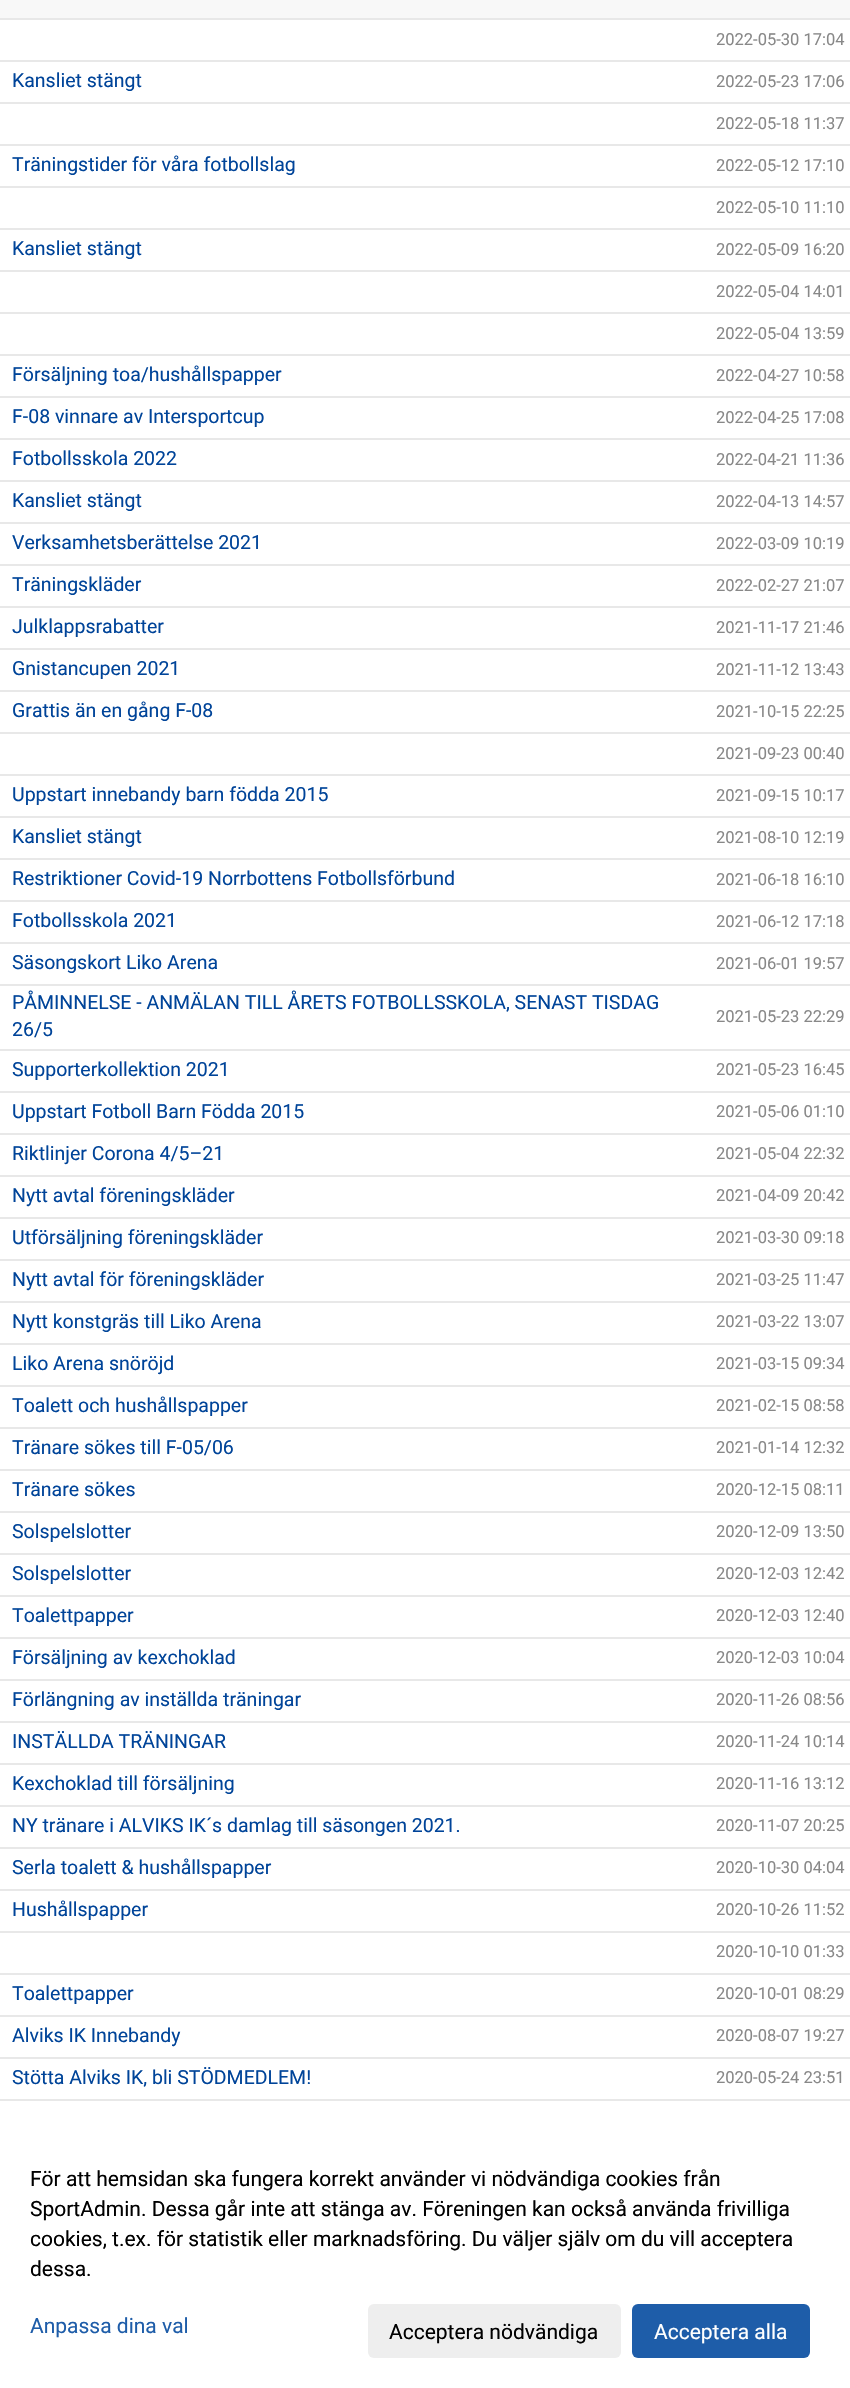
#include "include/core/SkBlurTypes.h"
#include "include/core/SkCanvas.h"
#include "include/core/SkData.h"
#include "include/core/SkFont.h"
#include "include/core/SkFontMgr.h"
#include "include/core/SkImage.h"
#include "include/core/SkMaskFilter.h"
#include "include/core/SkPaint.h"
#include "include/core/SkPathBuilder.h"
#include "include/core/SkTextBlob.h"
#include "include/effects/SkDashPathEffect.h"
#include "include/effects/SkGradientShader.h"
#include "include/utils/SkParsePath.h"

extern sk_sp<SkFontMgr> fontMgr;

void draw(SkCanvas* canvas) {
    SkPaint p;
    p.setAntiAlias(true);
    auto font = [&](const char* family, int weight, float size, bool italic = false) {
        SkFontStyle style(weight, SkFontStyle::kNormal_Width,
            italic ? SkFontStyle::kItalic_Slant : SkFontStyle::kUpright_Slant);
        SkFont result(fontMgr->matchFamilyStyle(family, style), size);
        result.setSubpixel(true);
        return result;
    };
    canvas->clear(0xFFFFFFFF);
    p.setColor(0xFFF8F8F8);
    canvas->drawRect(SkRect::MakeLTRB(0, 0, 850, 18), p);
    p.setColor(0xFFE8E8E8);
    canvas->drawRect(SkRect::MakeLTRB(0, 18, 850, 20), p);
    auto font1 = font("Roboto", 400, 16.5f);
    p.setColor(0xFF888888);
    canvas->drawString("2022-05-30 17:04", 716, 45, font1, p);
    p.setColor(0xFFE8E8E8);
    canvas->drawRect(SkRect::MakeLTRB(0, 60, 850, 62), p);
    auto font2 = font("Roboto", 400, 19.5f);
    p.setColor(0xFF004499);
    canvas->drawString("Kansliet stängt", 12, 87, font2, p);
    p.setColor(0xFF888888);
    canvas->drawString("2022-05-23 17:06", 716, 87, font1, p);
    p.setColor(0xFFE8E8E8);
    canvas->drawRect(SkRect::MakeLTRB(0, 102, 850, 104), p);
    p.setColor(0xFF888888);
    canvas->drawString("2022-05-18 11:37", 716, 129, font1, p);
    p.setColor(0xFFE8E8E8);
    canvas->drawRect(SkRect::MakeLTRB(0, 144, 850, 146), p);
    p.setColor(0xFF004499);
    canvas->drawString("Träningstider för våra fotbollslag", 12, 171, font2, p);
    p.setColor(0xFF888888);
    canvas->drawString("2022-05-12 17:10", 716, 171, font1, p);
    p.setColor(0xFFE8E8E8);
    canvas->drawRect(SkRect::MakeLTRB(0, 186, 850, 188), p);
    p.setColor(0xFF888888);
    canvas->drawString("2022-05-10 11:10", 716, 213, font1, p);
    p.setColor(0xFFE8E8E8);
    canvas->drawRect(SkRect::MakeLTRB(0, 228, 850, 230), p);
    p.setColor(0xFF004499);
    canvas->drawString("Kansliet stängt", 12, 255, font2, p);
    p.setColor(0xFF888888);
    canvas->drawString("2022-05-09 16:20", 716, 255, font1, p);
    p.setColor(0xFFE8E8E8);
    canvas->drawRect(SkRect::MakeLTRB(0, 270, 850, 272), p);
    p.setColor(0xFF888888);
    canvas->drawString("2022-05-04 14:01", 716, 297, font1, p);
    p.setColor(0xFFE8E8E8);
    canvas->drawRect(SkRect::MakeLTRB(0, 312, 850, 314), p);
    p.setColor(0xFF888888);
    canvas->drawString("2022-05-04 13:59", 716, 339, font1, p);
    p.setColor(0xFFE8E8E8);
    canvas->drawRect(SkRect::MakeLTRB(0, 354, 850, 356), p);
    p.setColor(0xFF004499);
    canvas->drawString("Försäljning toa/hushållspapper", 12, 381, font2, p);
    p.setColor(0xFF888888);
    canvas->drawString("2022-04-27 10:58", 716, 381, font1, p);
    p.setColor(0xFFE8E8E8);
    canvas->drawRect(SkRect::MakeLTRB(0, 396, 850, 398), p);
    p.setColor(0xFF004499);
    canvas->drawString("F-08 vinnare av Intersportcup", 12, 423, font2, p);
    p.setColor(0xFF888888);
    canvas->drawString("2022-04-25 17:08", 716, 423, font1, p);
    p.setColor(0xFFE8E8E8);
    canvas->drawRect(SkRect::MakeLTRB(0, 438, 850, 440), p);
    p.setColor(0xFF004499);
    canvas->drawString("Fotbollsskola 2022", 12, 465, font2, p);
    p.setColor(0xFF888888);
    canvas->drawString("2022-04-21 11:36", 716, 465, font1, p);
    p.setColor(0xFFE8E8E8);
    canvas->drawRect(SkRect::MakeLTRB(0, 480, 850, 482), p);
    p.setColor(0xFF004499);
    canvas->drawString("Kansliet stängt", 12, 507, font2, p);
    p.setColor(0xFF888888);
    canvas->drawString("2022-04-13 14:57", 716, 507, font1, p);
    p.setColor(0xFFE8E8E8);
    canvas->drawRect(SkRect::MakeLTRB(0, 522, 850, 524), p);
    p.setColor(0xFF004499);
    canvas->drawString("Verksamhetsberättelse 2021", 12, 549, font2, p);
    p.setColor(0xFF888888);
    canvas->drawString("2022-03-09 10:19", 716, 549, font1, p);
    p.setColor(0xFFE8E8E8);
    canvas->drawRect(SkRect::MakeLTRB(0, 564, 850, 566), p);
    p.setColor(0xFF004499);
    canvas->drawString("Träningskläder", 12, 591, font2, p);
    p.setColor(0xFF888888);
    canvas->drawString("2022-02-27 21:07", 716, 591, font1, p);
    p.setColor(0xFFE8E8E8);
    canvas->drawRect(SkRect::MakeLTRB(0, 606, 850, 608), p);
    p.setColor(0xFF004499);
    canvas->drawString("Julklappsrabatter", 12, 633, font2, p);
    p.setColor(0xFF888888);
    canvas->drawString("2021-11-17 21:46", 716, 633, font1, p);
    p.setColor(0xFFE8E8E8);
    canvas->drawRect(SkRect::MakeLTRB(0, 648, 850, 650), p);
    p.setColor(0xFF004499);
    canvas->drawString("Gnistancupen 2021", 12, 675, font2, p);
    p.setColor(0xFF888888);
    canvas->drawString("2021-11-12 13:43", 716, 675, font1, p);
    p.setColor(0xFFE8E8E8);
    canvas->drawRect(SkRect::MakeLTRB(0, 690, 850, 692), p);
    p.setColor(0xFF004499);
    canvas->drawString("Grattis än en gång F-08", 12, 717, font2, p);
    p.setColor(0xFF888888);
    canvas->drawString("2021-10-15 22:25", 716, 717, font1, p);
    p.setColor(0xFFE8E8E8);
    canvas->drawRect(SkRect::MakeLTRB(0, 732, 850, 734), p);
    p.setColor(0xFF888888);
    canvas->drawString("2021-09-23 00:40", 716, 759, font1, p);
    p.setColor(0xFFE8E8E8);
    canvas->drawRect(SkRect::MakeLTRB(0, 774, 850, 776), p);
    p.setColor(0xFF004499);
    canvas->drawString("Uppstart innebandy barn födda 2015", 12, 801, font2, p);
    p.setColor(0xFF888888);
    canvas->drawString("2021-09-15 10:17", 716, 801, font1, p);
    p.setColor(0xFFE8E8E8);
    canvas->drawRect(SkRect::MakeLTRB(0, 816, 850, 818), p);
    p.setColor(0xFF004499);
    canvas->drawString("Kansliet stängt", 12, 843, font2, p);
    p.setColor(0xFF888888);
    canvas->drawString("2021-08-10 12:19", 716, 843, font1, p);
    p.setColor(0xFFE8E8E8);
    canvas->drawRect(SkRect::MakeLTRB(0, 858, 850, 860), p);
    p.setColor(0xFF004499);
    canvas->drawString("Restriktioner Covid-19 Norrbottens Fotbollsförbund", 12, 885, font2, p);
    p.setColor(0xFF888888);
    canvas->drawString("2021-06-18 16:10", 716, 885, font1, p);
    p.setColor(0xFFE8E8E8);
    canvas->drawRect(SkRect::MakeLTRB(0, 900, 850, 902), p);
    p.setColor(0xFF004499);
    canvas->drawString("Fotbollsskola 2021", 12, 927, font2, p);
    p.setColor(0xFF888888);
    canvas->drawString("2021-06-12 17:18", 716, 927, font1, p);
    p.setColor(0xFFE8E8E8);
    canvas->drawRect(SkRect::MakeLTRB(0, 942, 850, 944), p);
    p.setColor(0xFF004499);
    canvas->drawString("Säsongskort Liko Arena", 12, 969, font2, p);
    p.setColor(0xFF888888);
    canvas->drawString("2021-06-01 19:57", 716, 969, font1, p);
    p.setColor(0xFFE8E8E8);
    canvas->drawRect(SkRect::MakeLTRB(0, 984, 850, 986), p);
    p.setColor(0xFF004499);
    canvas->drawString("PÅMINNELSE - ANMÄLAN TILL ÅRETS FOTBOLLSSKOLA, SENAST TISDAG", 12, 1009, font2, p);
    canvas->drawString("26/5", 12, 1036, font2, p);
    p.setColor(0xFF888888);
    canvas->drawString("2021-05-23 22:29", 716, 1022, font1, p);
    p.setColor(0xFFE8E8E8);
    canvas->drawRect(SkRect::MakeLTRB(0, 1049, 850, 1051), p);
    p.setColor(0xFF004499);
    canvas->drawString("Supporterkollektion 2021", 12, 1076, font2, p);
    p.setColor(0xFF888888);
    canvas->drawString("2021-05-23 16:45", 716, 1075, font1, p);
    p.setColor(0xFFE8E8E8);
    canvas->drawRect(SkRect::MakeLTRB(0, 1091, 850, 1093), p);
    p.setColor(0xFF004499);
    canvas->drawString("Uppstart Fotboll Barn Födda 2015", 12, 1118, font2, p);
    p.setColor(0xFF888888);
    canvas->drawString("2021-05-06 01:10", 716, 1117, font1, p);
    p.setColor(0xFFE8E8E8);
    canvas->drawRect(SkRect::MakeLTRB(0, 1133, 850, 1135), p);
    p.setColor(0xFF004499);
    canvas->drawString("Riktlinjer Corona 4/5–21", 12, 1160, font2, p);
    p.setColor(0xFF888888);
    canvas->drawString("2021-05-04 22:32", 716, 1159, font1, p);
    p.setColor(0xFFE8E8E8);
    canvas->drawRect(SkRect::MakeLTRB(0, 1175, 850, 1177), p);
    p.setColor(0xFF004499);
    canvas->drawString("Nytt avtal föreningskläder", 12, 1202, font2, p);
    p.setColor(0xFF888888);
    canvas->drawString("2021-04-09 20:42", 716, 1201, font1, p);
    p.setColor(0xFFE8E8E8);
    canvas->drawRect(SkRect::MakeLTRB(0, 1217, 850, 1219), p);
    p.setColor(0xFF004499);
    canvas->drawString("Utförsäljning föreningskläder", 12, 1244, font2, p);
    p.setColor(0xFF888888);
    canvas->drawString("2021-03-30 09:18", 716, 1243, font1, p);
    p.setColor(0xFFE8E8E8);
    canvas->drawRect(SkRect::MakeLTRB(0, 1259, 850, 1261), p);
    p.setColor(0xFF004499);
    canvas->drawString("Nytt avtal för föreningskläder", 12, 1286, font2, p);
    p.setColor(0xFF888888);
    canvas->drawString("2021-03-25 11:47", 716, 1285, font1, p);
    p.setColor(0xFFE8E8E8);
    canvas->drawRect(SkRect::MakeLTRB(0, 1301, 850, 1303), p);
    p.setColor(0xFF004499);
    canvas->drawString("Nytt konstgräs till Liko Arena", 12, 1328, font2, p);
    p.setColor(0xFF888888);
    canvas->drawString("2021-03-22 13:07", 716, 1327, font1, p);
    p.setColor(0xFFE8E8E8);
    canvas->drawRect(SkRect::MakeLTRB(0, 1343, 850, 1345), p);
    p.setColor(0xFF004499);
    canvas->drawString("Liko Arena snöröjd", 12, 1370, font2, p);
    p.setColor(0xFF888888);
    canvas->drawString("2021-03-15 09:34", 716, 1369, font1, p);
    p.setColor(0xFFE8E8E8);
    canvas->drawRect(SkRect::MakeLTRB(0, 1385, 850, 1387), p);
    p.setColor(0xFF004499);
    canvas->drawString("Toalett och hushållspapper", 12, 1412, font2, p);
    p.setColor(0xFF888888);
    canvas->drawString("2021-02-15 08:58", 716, 1411, font1, p);
    p.setColor(0xFFE8E8E8);
    canvas->drawRect(SkRect::MakeLTRB(0, 1427, 850, 1429), p);
    p.setColor(0xFF004499);
    canvas->drawString("Tränare sökes till F-05/06", 12, 1454, font2, p);
    p.setColor(0xFF888888);
    canvas->drawString("2021-01-14 12:32", 716, 1453, font1, p);
    p.setColor(0xFFE8E8E8);
    canvas->drawRect(SkRect::MakeLTRB(0, 1469, 850, 1471), p);
    p.setColor(0xFF004499);
    canvas->drawString("Tränare sökes", 12, 1496, font2, p);
    p.setColor(0xFF888888);
    canvas->drawString("2020-12-15 08:11", 716, 1495, font1, p);
    p.setColor(0xFFE8E8E8);
    canvas->drawRect(SkRect::MakeLTRB(0, 1511, 850, 1513), p);
    p.setColor(0xFF004499);
    canvas->drawString("Solspelslotter", 12, 1538, font2, p);
    p.setColor(0xFF888888);
    canvas->drawString("2020-12-09 13:50", 716, 1537, font1, p);
    p.setColor(0xFFE8E8E8);
    canvas->drawRect(SkRect::MakeLTRB(0, 1553, 850, 1555), p);
    p.setColor(0xFF004499);
    canvas->drawString("Solspelslotter", 12, 1580, font2, p);
    p.setColor(0xFF888888);
    canvas->drawString("2020-12-03 12:42", 716, 1579, font1, p);
    p.setColor(0xFFE8E8E8);
    canvas->drawRect(SkRect::MakeLTRB(0, 1595, 850, 1597), p);
    p.setColor(0xFF004499);
    canvas->drawString("Toalettpapper", 12, 1622, font2, p);
    p.setColor(0xFF888888);
    canvas->drawString("2020-12-03 12:40", 716, 1621, font1, p);
    p.setColor(0xFFE8E8E8);
    canvas->drawRect(SkRect::MakeLTRB(0, 1637, 850, 1639), p);
    p.setColor(0xFF004499);
    canvas->drawString("Försäljning av kexchoklad", 12, 1664, font2, p);
    p.setColor(0xFF888888);
    canvas->drawString("2020-12-03 10:04", 716, 1663, font1, p);
    p.setColor(0xFFE8E8E8);
    canvas->drawRect(SkRect::MakeLTRB(0, 1679, 850, 1681), p);
    p.setColor(0xFF004499);
    canvas->drawString("Förlängning av inställda träningar", 12, 1706, font2, p);
    p.setColor(0xFF888888);
    canvas->drawString("2020-11-26 08:56", 716, 1705, font1, p);
    p.setColor(0xFFE8E8E8);
    canvas->drawRect(SkRect::MakeLTRB(0, 1721, 850, 1723), p);
    p.setColor(0xFF004499);
    canvas->drawString("INSTÄLLDA TRÄNINGAR", 12, 1748, font2, p);
    p.setColor(0xFF888888);
    canvas->drawString("2020-11-24 10:14", 716, 1747, font1, p);
    p.setColor(0xFFE8E8E8);
    canvas->drawRect(SkRect::MakeLTRB(0, 1763, 850, 1765), p);
    p.setColor(0xFF004499);
    canvas->drawString("Kexchoklad till försäljning", 12, 1790, font2, p);
    p.setColor(0xFF888888);
    canvas->drawString("2020-11-16 13:12", 716, 1789, font1, p);
    p.setColor(0xFFE8E8E8);
    canvas->drawRect(SkRect::MakeLTRB(0, 1805, 850, 1807), p);
    p.setColor(0xFF004499);
    canvas->drawString("NY tränare i ALVIKS IK´s damlag till säsongen 2021.", 12, 1832, font2, p);
    p.setColor(0xFF888888);
    canvas->drawString("2020-11-07 20:25", 716, 1831, font1, p);
    p.setColor(0xFFE8E8E8);
    canvas->drawRect(SkRect::MakeLTRB(0, 1847, 850, 1849), p);
    p.setColor(0xFF004499);
    canvas->drawString("Serla toalett & hushållspapper", 12, 1874, font2, p);
    p.setColor(0xFF888888);
    canvas->drawString("2020-10-30 04:04", 716, 1873, font1, p);
    p.setColor(0xFFE8E8E8);
    canvas->drawRect(SkRect::MakeLTRB(0, 1889, 850, 1891), p);
    p.setColor(0xFF004499);
    canvas->drawString("Hushållspapper", 12, 1916, font2, p);
    p.setColor(0xFF888888);
    canvas->drawString("2020-10-26 11:52", 716, 1915, font1, p);
    p.setColor(0xFFE8E8E8);
    canvas->drawRect(SkRect::MakeLTRB(0, 1931, 850, 1933), p);
    p.setColor(0xFF888888);
    canvas->drawString("2020-10-10 01:33", 716, 1957, font1, p);
    p.setColor(0xFFE8E8E8);
    canvas->drawRect(SkRect::MakeLTRB(0, 1973, 850, 1975), p);
    p.setColor(0xFF004499);
    canvas->drawString("Toalettpapper", 12, 2000, font2, p);
    p.setColor(0xFF888888);
    canvas->drawString("2020-10-01 08:29", 716, 1999, font1, p);
    p.setColor(0xFFE8E8E8);
    canvas->drawRect(SkRect::MakeLTRB(0, 2015, 850, 2017), p);
    p.setColor(0xFF004499);
    canvas->drawString("Alviks IK Innebandy", 12, 2042, font2, p);
    p.setColor(0xFF888888);
    canvas->drawString("2020-08-07 19:27", 716, 2041, font1, p);
    p.setColor(0xFFE8E8E8);
    canvas->drawRect(SkRect::MakeLTRB(0, 2057, 850, 2059), p);
    p.setColor(0xFF004499);
    canvas->drawString("Stötta Alviks IK, bli STÖDMEDLEM!", 12, 2084, font2, p);
    p.setColor(0xFF888888);
    canvas->drawString("2020-05-24 23:51", 716, 2083, font1, p);
    p.setColor(0xFFE8E8E8);
    canvas->drawRect(SkRect::MakeLTRB(0, 2099, 850, 2101), p);
    auto font3 = font("Roboto", 400, 21);
    p.setColor(0xFF000000);
    {
        const struct { const char* s; float x, y; } items[] = {
            {"För att hemsidan ska fungera korrekt använder vi nödvändiga cookies från", 30, 2186},
            {"SportAdmin. Dessa går inte att stänga av. Föreningen kan också använda frivilliga", 30, 2216},
            {"cookies, t.ex. för statistik eller marknadsföring. Du väljer själv om du vill acceptera", 30, 2246},
            {"dessa.", 30, 2276},
        };
        for (auto [s, x, y] : items) {
            canvas->drawString(s, x, y, font3, p);
        }
    }
    p.setColor(0xFF1E5DA9);
    canvas->drawString("Anpassa dina val", 30, 2333, font3, p);
    p.setColor(0xFFEEEEEE);
    canvas->drawRoundRect(SkRect::MakeLTRB(368, 2304, 621, 2358), 6, 6, p);
    p.setColor(0xFF000000);
    canvas->drawString("Acceptera nödvändiga", 389, 2339, font3, p);
    p.setColor(0xFF1E5DA9);
    canvas->drawRoundRect(SkRect::MakeLTRB(632, 2304, 810, 2358), 6, 6, p);
    p.setColor(0xFFFFFFFF);
    canvas->drawString("Acceptera alla", 654, 2339, font3, p);
}
